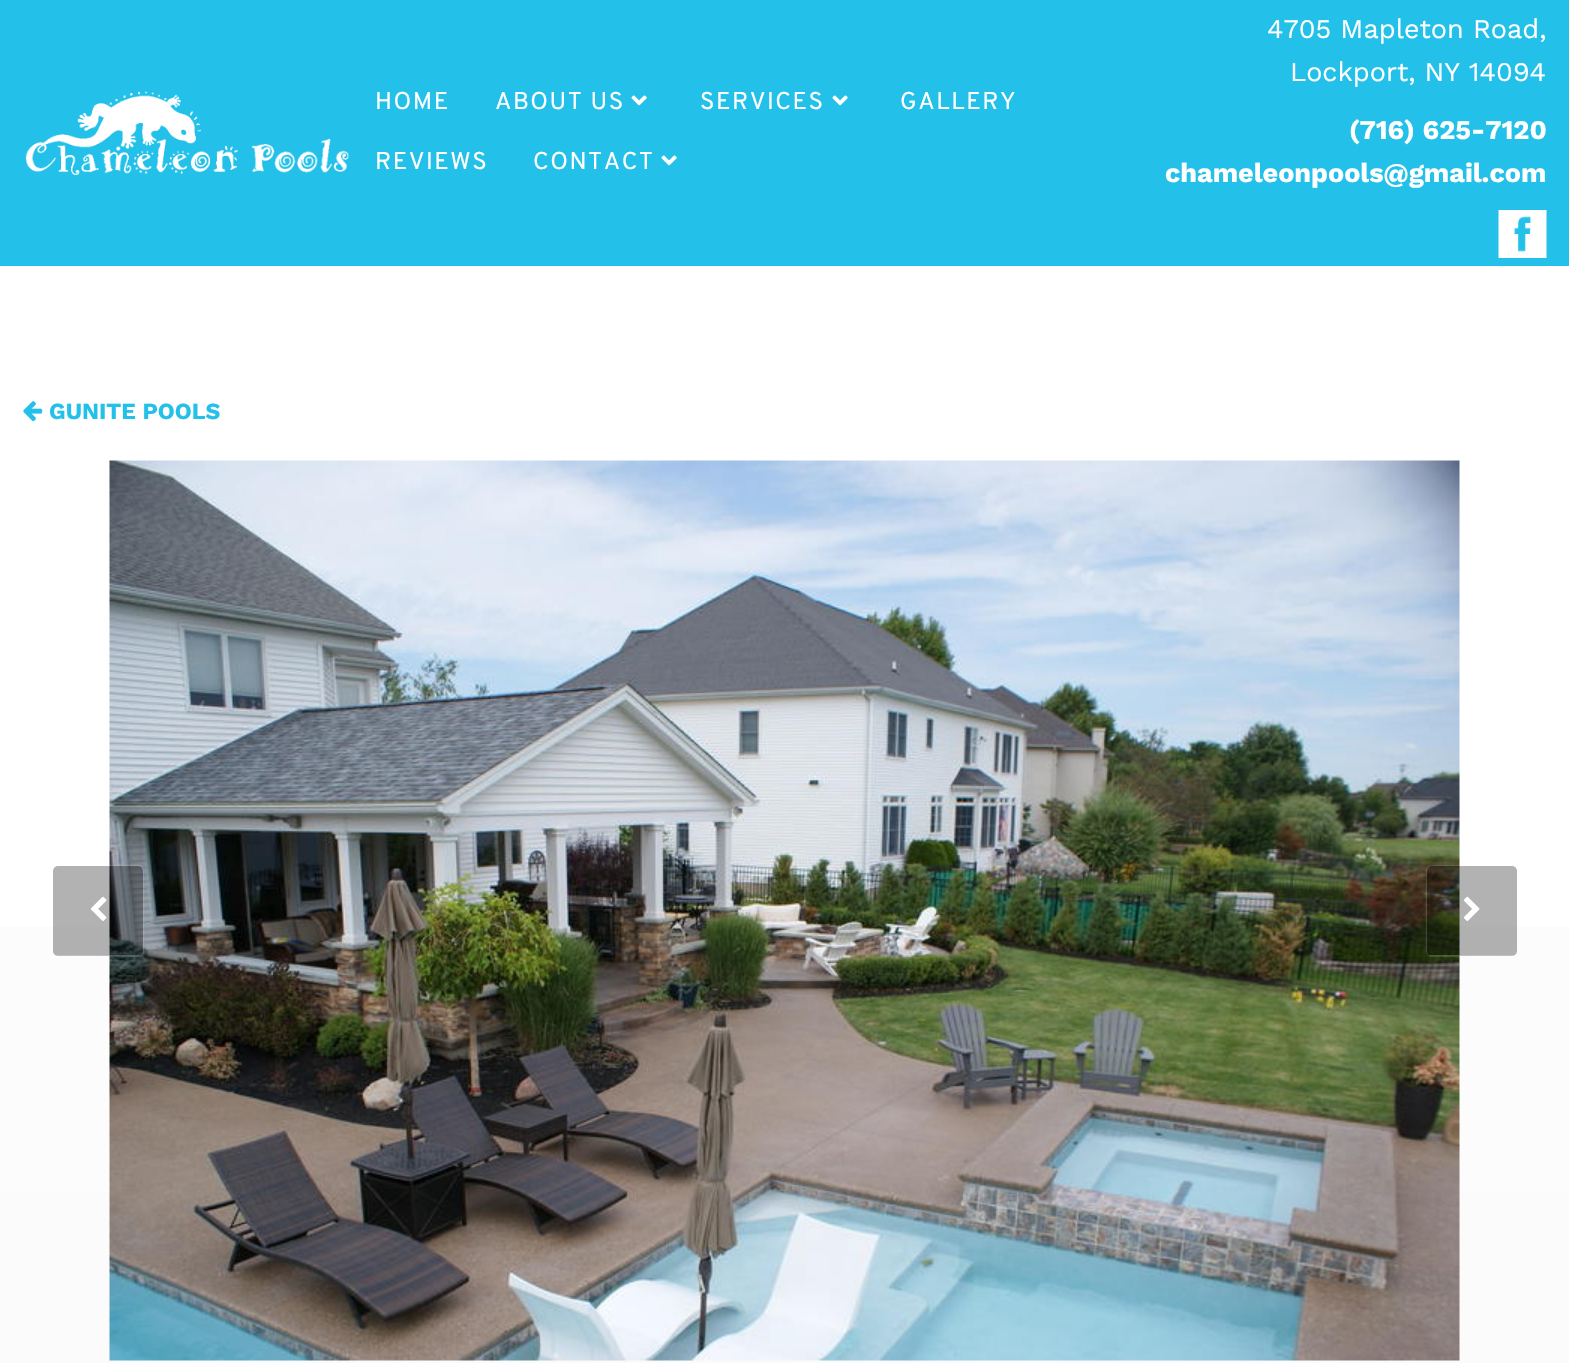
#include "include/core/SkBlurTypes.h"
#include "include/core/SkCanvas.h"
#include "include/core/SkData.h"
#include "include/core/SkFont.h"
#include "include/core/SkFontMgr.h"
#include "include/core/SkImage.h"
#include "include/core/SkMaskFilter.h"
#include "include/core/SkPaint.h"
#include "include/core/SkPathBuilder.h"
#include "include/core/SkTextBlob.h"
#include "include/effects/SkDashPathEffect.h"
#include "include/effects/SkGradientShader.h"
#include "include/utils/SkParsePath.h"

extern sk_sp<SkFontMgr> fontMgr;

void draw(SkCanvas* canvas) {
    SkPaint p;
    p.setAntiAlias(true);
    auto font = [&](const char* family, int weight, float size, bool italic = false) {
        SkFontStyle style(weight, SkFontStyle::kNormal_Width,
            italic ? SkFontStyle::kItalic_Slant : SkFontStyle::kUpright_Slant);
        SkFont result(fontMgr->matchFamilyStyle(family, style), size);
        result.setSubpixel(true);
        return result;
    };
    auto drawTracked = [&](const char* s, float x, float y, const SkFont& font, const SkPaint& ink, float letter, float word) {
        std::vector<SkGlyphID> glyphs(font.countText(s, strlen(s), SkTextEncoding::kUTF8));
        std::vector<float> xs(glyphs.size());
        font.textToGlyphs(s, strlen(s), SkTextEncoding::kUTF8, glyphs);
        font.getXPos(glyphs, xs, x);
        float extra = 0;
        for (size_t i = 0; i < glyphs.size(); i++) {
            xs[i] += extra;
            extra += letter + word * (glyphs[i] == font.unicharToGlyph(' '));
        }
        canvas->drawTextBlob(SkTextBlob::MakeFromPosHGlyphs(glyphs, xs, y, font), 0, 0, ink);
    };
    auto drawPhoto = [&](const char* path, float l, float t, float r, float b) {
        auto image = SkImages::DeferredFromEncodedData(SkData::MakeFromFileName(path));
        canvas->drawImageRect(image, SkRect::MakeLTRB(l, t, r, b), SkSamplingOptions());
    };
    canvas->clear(0xFFFFFFFF);
    p.setColor(0xFF23C1E9);
    canvas->drawRect(SkRect::MakeLTRB(0, 0, 1569, 266), p);
    drawPhoto("media/1.png", 25, 91, 349, 175);
    auto font1 = font("Overpass", 400, 24.25f);
    p.setColor(0xFFFFFFFF);
    drawTracked("HOME", 375, 109, font1, p, 1.5f, 0);
    drawTracked("ABOUT US", 495, 109, font1, p, 1.5f, 0);
    drawPhoto("media/2.png", 631, 95, 647, 106);
    drawTracked("SERVICES", 700, 109, font1, p, 1.5f, 0);
    drawPhoto("media/2.png", 832, 95, 848, 106);
    {
        const struct { const char* s; float x, y; } items[] = {
            {"GALLERY", 900, 109},
            {"REVIEWS", 375, 169},
            {"CONTACT", 533, 169},
        };
        for (auto [s, x, y] : items) {
            drawTracked(s, x, y, font1, p, 1.5f, 0);
        }
    }
    drawPhoto("media/2.png", 661, 155, 677, 166);
    auto font2 = font("Work Sans", 400, 27);
    canvas->drawString("4705 Mapleton Road,", 1267, 38, font2, p);
    canvas->drawString("Lockport, NY 14094", 1290, 81, font2, p);
    auto font3 = font("Work Sans", 700, 27);
    canvas->drawString("(716) 625-7120", 1349, 139, font3, p);
    canvas->drawString("chameleonpools@gmail.com", 1165, 182, font3, p);
    drawPhoto("media/3.png", 1498, 210, 1547, 258);
    {
        const SkColor colors[] = {0xFFFFFFFF, 0xFFFAFAFA};
        const float stops[] = {0, 1};
        const SkPoint ends[] = {{785, 265}, {785, 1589}};
        p.setShader(SkGradientShader::MakeLinear(ends, colors, stops, 2, SkTileMode::kClamp));
        p.setAlpha(255);
    }
    canvas->drawRect(SkRect::MakeLTRB(0, 927, 1569, 1363), p);
    drawPhoto("media/4.png", 23, 401, 43, 422);
    auto font4 = font("Work Sans", 700, 23);
    p.setShader(nullptr);
    p.setColor(0xFF23C1E9);
    canvas->drawString("GUNITE POOLS", 49, 419, font4, p);
    drawPhoto("media/7.png", 109, 460, 1460, 1361);
    canvas->save();
    canvas->clipPath(SkPathBuilder(SkPathFillType::kEvenOdd).moveTo(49, 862).lineTo(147, 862).lineTo(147, 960).lineTo(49, 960).close().moveTo(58, 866).lineTo(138, 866).cubicTo(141, 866, 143, 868, 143, 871).lineTo(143, 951).cubicTo(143, 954, 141, 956, 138, 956).lineTo(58, 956).cubicTo(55, 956, 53, 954, 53, 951).lineTo(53, 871).cubicTo(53, 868, 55, 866, 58, 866).close().detach(), true);
    p.setColor(0x80FFFFFF);
    p.setMaskFilter(SkMaskFilter::MakeBlur(kNormal_SkBlurStyle, 1));
    canvas->drawRoundRect(SkRect::MakeLTRB(53, 866, 143, 956), 5, 5, p);
    p.setMaskFilter(nullptr);
    canvas->restore();
    p.setColor(0x4D000000);
    canvas->drawRoundRect(SkRect::MakeLTRB(53, 866, 143, 956), 5, 5, p);
    drawPhoto("media/5.png", 90, 896, 107, 921);
    drawPhoto("media/6.png", 56, 955, 140, 956);
    canvas->save();
    canvas->clipPath(SkPathBuilder(SkPathFillType::kEvenOdd).moveTo(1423, 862).lineTo(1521, 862).lineTo(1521, 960).lineTo(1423, 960).close().moveTo(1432, 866).lineTo(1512, 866).cubicTo(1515, 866, 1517, 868, 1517, 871).lineTo(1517, 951).cubicTo(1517, 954, 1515, 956, 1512, 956).lineTo(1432, 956).cubicTo(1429, 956, 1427, 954, 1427, 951).lineTo(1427, 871).cubicTo(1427, 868, 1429, 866, 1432, 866).close().detach(), true);
    p.setColor(0x80FFFFFF);
    p.setMaskFilter(SkMaskFilter::MakeBlur(kNormal_SkBlurStyle, 1));
    canvas->drawRoundRect(SkRect::MakeLTRB(1427, 866, 1517, 956), 5, 5, p);
    p.setMaskFilter(nullptr);
    canvas->restore();
    p.setColor(0x4D000000);
    canvas->drawRoundRect(SkRect::MakeLTRB(1427, 866, 1517, 956), 5, 5, p);
    drawPhoto("media/8.png", 1463, 896, 1480, 921);
    drawPhoto("media/9.png", 1429, 955, 1514, 956);
}
